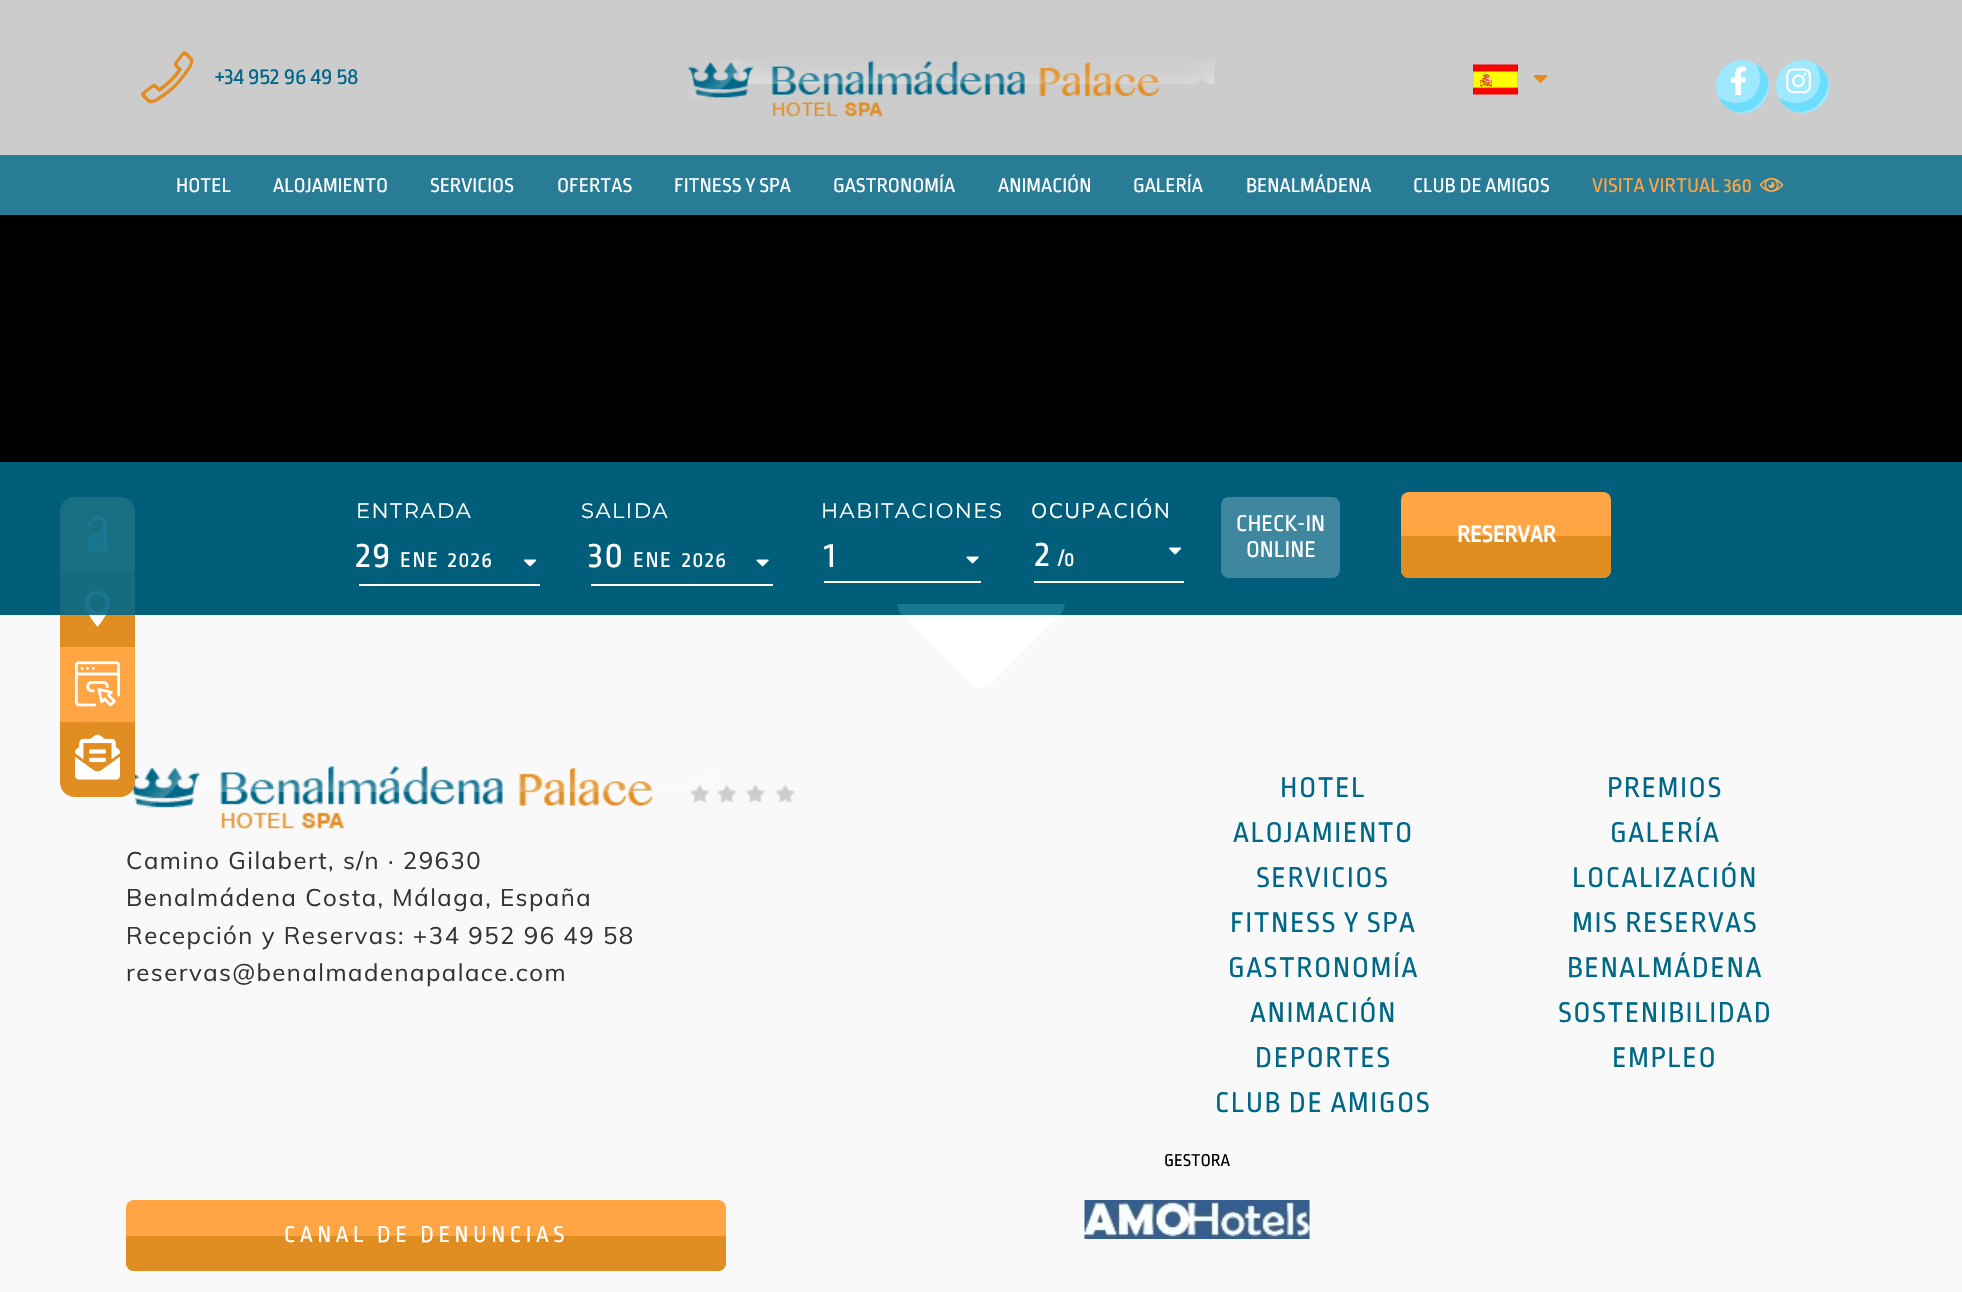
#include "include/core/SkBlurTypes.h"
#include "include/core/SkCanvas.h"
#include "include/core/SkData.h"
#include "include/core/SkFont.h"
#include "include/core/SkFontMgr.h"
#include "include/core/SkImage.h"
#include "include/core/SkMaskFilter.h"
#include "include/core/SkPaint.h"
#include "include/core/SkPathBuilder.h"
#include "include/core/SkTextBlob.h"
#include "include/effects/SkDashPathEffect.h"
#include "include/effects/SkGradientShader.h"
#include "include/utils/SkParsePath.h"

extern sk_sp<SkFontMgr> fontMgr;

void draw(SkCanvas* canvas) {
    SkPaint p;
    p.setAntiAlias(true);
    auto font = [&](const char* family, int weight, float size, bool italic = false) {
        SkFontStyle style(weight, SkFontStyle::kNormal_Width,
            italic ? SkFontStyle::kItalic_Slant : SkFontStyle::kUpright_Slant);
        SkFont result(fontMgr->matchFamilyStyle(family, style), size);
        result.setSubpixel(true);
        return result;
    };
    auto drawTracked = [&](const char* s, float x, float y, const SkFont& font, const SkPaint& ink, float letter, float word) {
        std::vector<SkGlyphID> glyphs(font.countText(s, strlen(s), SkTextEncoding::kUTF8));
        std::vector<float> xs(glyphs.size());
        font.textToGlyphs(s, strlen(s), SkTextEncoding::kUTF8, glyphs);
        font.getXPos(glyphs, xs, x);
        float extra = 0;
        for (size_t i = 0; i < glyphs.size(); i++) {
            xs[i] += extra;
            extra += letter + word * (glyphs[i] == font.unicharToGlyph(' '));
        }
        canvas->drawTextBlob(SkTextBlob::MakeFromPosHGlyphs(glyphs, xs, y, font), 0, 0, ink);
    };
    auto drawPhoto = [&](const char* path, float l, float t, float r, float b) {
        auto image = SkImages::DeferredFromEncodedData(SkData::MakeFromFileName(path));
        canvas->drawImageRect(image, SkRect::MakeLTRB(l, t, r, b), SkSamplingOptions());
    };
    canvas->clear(0xFF010001);
    p.setColor(0xFFCCCCCC);
    canvas->drawRect(SkRect::MakeLTRB(0, 0, 1962, 155), p);
    drawPhoto("media/1.png", 141, 51, 194, 104);
    auto font1 = font("Ropa Sans", 400, 24);
    p.setColor(0xFF006887);
    canvas->drawString("+34 952 96 49 58", 215, 84, font1, p);
    drawPhoto("media/2.png", 687, 60, 1215, 117);
    drawPhoto("media/3.png", 1473, 64, 1518, 95);
    drawPhoto("media/4.png", 1533, 75, 1548, 83);
    p.setColor(0xFF9EE9FF);
    canvas->drawCircle(1742.5f, 86.5f, 26.5f, p);
    p.setColor(0xFF6BDDFF);
    canvas->drawPath(SkPathBuilder().moveTo(1719, 98).cubicTo(1745, 113, 1770, 92, 1756, 64).cubicTo(1768, 71, 1771, 81, 1766, 93).cubicTo(1764, 98, 1760, 103, 1755, 107).cubicTo(1742, 116, 1726, 113, 1719, 98).close().detach(), p);
    drawPhoto("media/5.png", 1730, 66, 1747, 96);
    p.setColor(0xFF9EE9FF);
    canvas->drawCircle(1802.5f, 86.5f, 26.5f, p);
    p.setColor(0xFF6BDDFF);
    canvas->drawPath(SkPathBuilder().moveTo(1779, 98).cubicTo(1805, 113, 1830, 92, 1816, 64).cubicTo(1828, 71, 1831, 81, 1826, 93).cubicTo(1824, 98, 1820, 103, 1815, 107).cubicTo(1802, 116, 1786, 113, 1779, 98).close().detach(), p);
    drawPhoto("media/6.png", 1786, 68, 1811, 94);
    p.setColor(0xFF297C95);
    canvas->drawRect(SkRect::MakeLTRB(0, 155, 1962, 215), p);
    auto font2 = font("Ropa Sans", 400, 21);
    p.setColor(0xFFFFFFFF);
    {
        const struct { const char* s; float x, y; } items[] = {
            {"HOTEL", 176, 192},
            {"ALOJAMIENTO", 273, 192},
            {"SERVICIOS", 430, 192},
            {"OFERTAS", 557, 192},
            {"FITNESS Y SPA", 674, 192},
            {"GASTRONOMÍA", 833, 192},
            {"ANIMACIÓN", 998, 192},
            {"GALERÍA", 1133, 192},
            {"BENALMÁDENA", 1246, 192},
            {"CLUB DE AMIGOS", 1413, 192},
        };
        for (auto [s, x, y] : items) {
            canvas->drawString(s, x, y, font2, p);
        }
    }
    p.setColor(0xFFFFA543);
    canvas->drawString("VISITA VIRTUAL 360", 1592, 192, font2, p);
    drawPhoto("media/7.png", 1759, 177, 1784, 192);
    canvas->drawPath(SkPathBuilder().moveTo(75, 497).lineTo(120, 497).cubicTo(128.5f, 497, 135, 503.5f, 135, 512).lineTo(135, 572).lineTo(60, 572).lineTo(60, 512).cubicTo(60, 503.5f, 66.5f, 497, 75, 497).close().detach(), p);
    drawPhoto("media/8.png", 87, 515, 108, 552);
    p.setColor(0xFFF9F9F9);
    canvas->drawRect(SkRect::MakeLTRB(0, 615, 1962, 1292), p);
    p.setColor(0xFFE08D22);
    canvas->drawRect(SkRect::MakeLTRB(60, 572, 135, 647), p);
    drawPhoto("media/9.png", 85, 590, 110, 627);
    p.setColor(0xFFFFA543);
    canvas->drawRect(SkRect::MakeLTRB(60, 647, 135, 722), p);
    drawPhoto("media/10.png", 75, 661, 120, 707);
    drawPhoto("media/14.png", 127, 766, 795, 829);
    p.setColor(0xFFE08D22);
    canvas->drawPath(SkPathBuilder().moveTo(60, 722).lineTo(135, 722).lineTo(135, 782).cubicTo(135, 790.5f, 128.5f, 797, 120, 797).lineTo(75, 797).cubicTo(66.5f, 797, 60, 790.5f, 60, 782).close().detach(), p);
    drawPhoto("media/11.png", 75, 734, 120, 780);
    {
        const SkColor colors[] = {0x00FFFFFF, 0xFFFFFFFF, 0xFFFFFFFF};
        const float stops[] = {0.5f, 0.5f, 1};
        const SkPoint ends[] = {{981, 514}, {981, 694}};
        p.setShader(SkGradientShader::MakeLinear(ends, colors, stops, 3, SkTileMode::kClamp));
        p.setAlpha(255);
    }
    canvas->drawPath(SkPathBuilder().moveTo(992, 524).lineTo(1061, 593).cubicTo(1066, 599, 1066, 608, 1061, 614).lineTo(992, 683).cubicTo(986, 689, 976, 689, 970, 683).lineTo(901, 614).cubicTo(896, 608, 896, 599, 901, 593).lineTo(970, 524).cubicTo(976, 518, 986, 518, 992, 524).close().detach(), p);
    p.setShader(nullptr);
    p.setColor(0xE6006887);
    canvas->drawRect(SkRect::MakeLTRB(0, 462, 1962, 615), p);
    auto font3 = font("Montserrat", 400, 21);
    p.setColor(0xFFFFFFFF);
    drawTracked("ENTRADA", 356, 518, font3, p, 1.5f, 0);
    drawTracked("SALIDA", 581, 518, font3, p, 1.5f, 0);
    canvas->drawRect(SkRect::MakeLTRB(359, 584, 540, 586), p);
    auto font4 = font("Ropa Sans", 400, 38);
    drawTracked("29", 356, 567, font4, p, 1.5f, 0);
    auto font5 = font("Ropa Sans", 400, 22.5f);
    drawTracked("ENE", 400, 567, font5, p, 1.5f, 0);
    drawTracked("2026", 448, 567, font5, p, 1.5f, 0);
    drawPhoto("media/12.png", 524, 559, 537, 567);
    canvas->drawRect(SkRect::MakeLTRB(591, 584, 773, 586), p);
    drawTracked("30", 588, 567, font4, p, 1.5f, 0);
    drawTracked("ENE", 633, 567, font5, p, 1.5f, 0);
    drawTracked("2026", 682, 567, font5, p, 1.5f, 0);
    drawPhoto("media/13.png", 756, 559, 769, 567);
    drawTracked("HABITACIONES", 821, 518, font3, p, 1.5f, 0);
    canvas->drawRect(SkRect::MakeLTRB(824, 581, 981, 583), p);
    canvas->save();
    canvas->clipRect(SkRect::MakeLTRB(824, 528, 981, 584));
    drawTracked("1", 824, 567, font4, p, 1.5f, 0);
    canvas->restore();
    drawPhoto("media/13.png", 966, 556, 979, 564);
    auto font6 = font("Muli", 400, 21);
    drawTracked("OCUPACIÓN", 1031, 518, font6, p, 1.5f, 0);
    canvas->drawRect(SkRect::MakeLTRB(1034, 581, 1184, 583), p);
    canvas->drawString("2", 1035, 566, font4, p);
    canvas->drawString("/", 1058, 566, font1, p);
    canvas->drawString("0", 1064, 566, font2, p);
    drawPhoto("media/12.png", 1169, 547, 1182, 555);
    p.setColor(0xFF3F869F);
    canvas->drawRoundRect(SkRect::MakeLTRB(1221, 497, 1340, 578), 8, 8, p);
    p.setColor(0xFFFFFFFF);
    canvas->drawString("CHECK-IN", 1236, 531, font1, p);
    canvas->drawString("ONLINE", 1246, 557, font1, p);
    p.setColor(0xFFFFA543);
    canvas->drawRoundRect(SkRect::MakeLTRB(1401, 492, 1611, 578), 8, 8, p);
    p.setColor(0xFFE08D22);
    canvas->drawPath(SkPathBuilder().moveTo(1401, 536).lineTo(1611, 536).lineTo(1611, 570).cubicTo(1611, 574.5f, 1607.5f, 578, 1603, 578).lineTo(1409, 578).cubicTo(1404.5f, 578, 1401, 574.5f, 1401, 570).close().detach(), p);
    auto font7 = font("Ropa Sans", 700, 24);
    p.setColor(0xFFFFFFFF);
    canvas->drawString("RESERVAR", 1457, 542, font7, p);
    auto font8 = font("Muli", 400, 24);
    p.setColor(0xFF333333);
    {
        const struct { const char* s; float x, y; } items[] = {
            {"Camino Gilabert, s/n · 29630", 126, 869},
            {"Benalmádena Costa, Málaga, España", 126, 906},
            {"Recepción y Reservas: +34 952 96 49 58", 126, 944},
            {"reservas@benalmadenapalace.com", 126, 981},
        };
        for (auto [s, x, y] : items) {
            drawTracked(s, x, y, font8, p, 1.5f, 0);
        }
    }
    auto font9 = font("Ropa Sans", 400, 30);
    p.setColor(0xFF006887);
    {
        const struct { const char* s; float x, y; } items[] = {
            {"HOTEL", 1280, 797},
            {"ALOJAMIENTO", 1233, 842},
            {"SERVICIOS", 1256, 887},
            {"FITNESS Y SPA", 1230, 932},
            {"GASTRONOMÍA", 1228, 977},
            {"ANIMACIÓN", 1250, 1022},
            {"DEPORTES", 1255, 1067},
            {"CLUB DE AMIGOS", 1215, 1112},
            {"PREMIOS", 1607, 797},
            {"GALERÍA", 1610, 842},
            {"LOCALIZACIÓN", 1572, 887},
            {"MIS RESERVAS", 1572, 932},
            {"BENALMÁDENA", 1567, 977},
            {"SOSTENIBILIDAD", 1558, 1022},
            {"EMPLEO", 1612, 1067},
        };
        for (auto [s, x, y] : items) {
            drawTracked(s, x, y, font9, p, 1.5f, 0);
        }
    }
    auto font10 = font("Ropa Sans", 400, 18);
    p.setColor(0xFF000000);
    canvas->drawString("GESTORA", 1164, 1166, font10, p);
    drawPhoto("media/15.png", 1084, 1200, 1310, 1239);
    p.setColor(0xFFFFA543);
    canvas->drawRoundRect(SkRect::MakeLTRB(126, 1200, 726, 1271), 8, 8, p);
    p.setColor(0xFFE08D22);
    canvas->drawPath(SkPathBuilder().moveTo(126, 1236).lineTo(726, 1236).lineTo(726, 1263).cubicTo(726, 1267.5f, 722.5f, 1271, 718, 1271).lineTo(134, 1271).cubicTo(129.5f, 1271, 126, 1267.5f, 126, 1263).close().detach(), p);
    p.setColor(0xFFFFFFFF);
    drawTracked("CANAL DE DENUNCIAS", 284, 1242, font1, p, 4.5f, 0);
}
